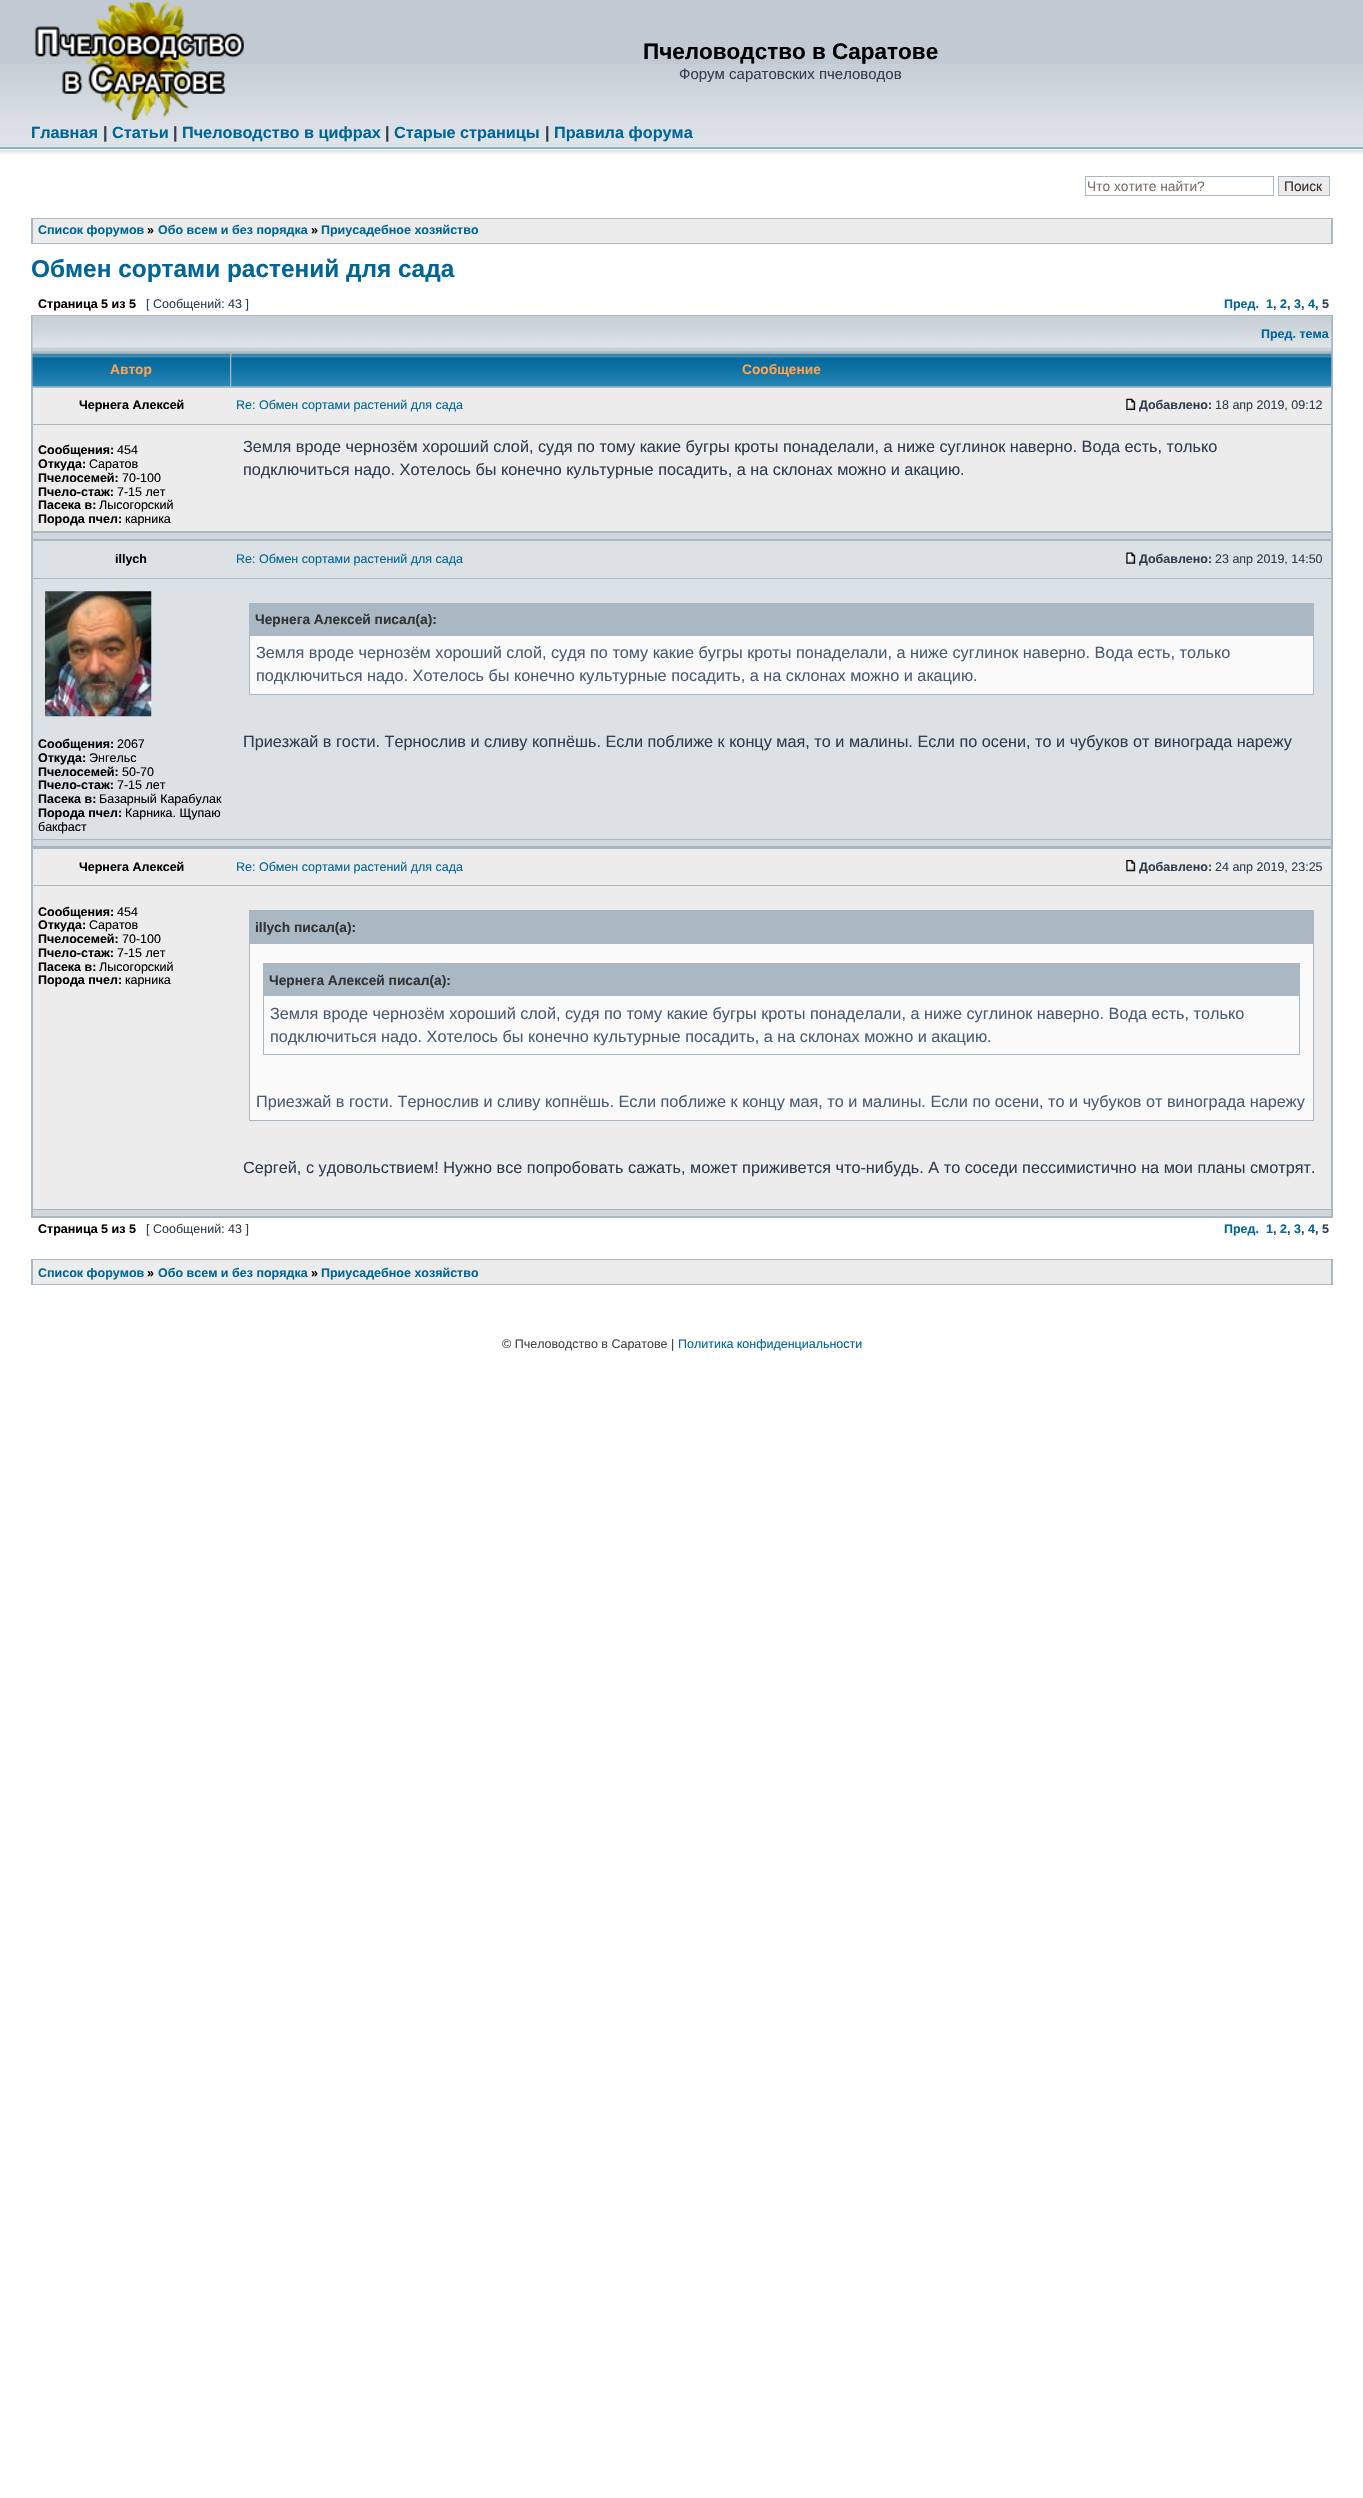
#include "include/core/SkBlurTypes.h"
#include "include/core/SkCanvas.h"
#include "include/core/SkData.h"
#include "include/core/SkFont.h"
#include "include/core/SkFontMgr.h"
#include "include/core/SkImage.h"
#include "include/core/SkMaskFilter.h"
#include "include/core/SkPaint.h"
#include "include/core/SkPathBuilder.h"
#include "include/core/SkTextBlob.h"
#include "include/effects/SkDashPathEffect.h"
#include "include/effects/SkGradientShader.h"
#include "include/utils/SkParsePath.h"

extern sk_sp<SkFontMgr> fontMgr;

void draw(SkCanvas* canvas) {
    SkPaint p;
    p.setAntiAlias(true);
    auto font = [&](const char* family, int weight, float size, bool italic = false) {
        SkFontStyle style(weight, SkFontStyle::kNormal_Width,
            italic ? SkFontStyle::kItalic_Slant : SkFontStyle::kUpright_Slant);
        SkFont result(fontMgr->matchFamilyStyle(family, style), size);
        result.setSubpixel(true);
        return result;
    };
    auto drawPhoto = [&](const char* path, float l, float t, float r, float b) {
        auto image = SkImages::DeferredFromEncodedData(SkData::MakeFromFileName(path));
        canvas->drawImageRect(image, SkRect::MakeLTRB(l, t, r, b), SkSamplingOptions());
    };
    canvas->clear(0xFFFFFFFF);
    p.setColor(0xFFC1CAD2);
    canvas->drawRect(SkRect::MakeLTRB(0, 0, 1363, 64), p);
    drawPhoto("media/1.png", 0, 64, 1363, 161);
    drawPhoto("media/2.png", 34, 2, 244, 120);
    auto font1 = font("Liberation Sans", 700, 22.5f);
    p.setColor(0xFF000000);
    canvas->drawString("Пчеловодство в Саратове", 643, 59, font1, p);
    auto font2 = font("Liberation Sans", 400, 15);
    p.setColor(0xFF323D4F);
    canvas->drawString("Форум саратовских пчеловодов", 679, 79, font2, p);
    auto font3 = font("Liberation Sans", 700, 16.25f);
    p.setColor(0xFF006597);
    canvas->drawString("Главная", 31, 138, font3, p);
    p.setColor(0xFF323D4F);
    canvas->drawString("|", 103, 138, font3, p);
    p.setColor(0xFF006597);
    canvas->drawString("Статьи", 112, 138, font3, p);
    p.setColor(0xFF323D4F);
    canvas->drawString("|", 173, 138, font3, p);
    p.setColor(0xFF006597);
    canvas->drawString("Пчеловодство в цифрах", 182, 138, font3, p);
    p.setColor(0xFF323D4F);
    canvas->drawString("|", 385, 138, font3, p);
    p.setColor(0xFF006597);
    canvas->drawString("Старые страницы", 394, 138, font3, p);
    p.setColor(0xFF323D4F);
    canvas->drawString("|", 545, 138, font3, p);
    p.setColor(0xFF006597);
    canvas->drawString("Правила форума", 554, 138, font3, p);
    p.setStyle(SkPaint::kStroke_Style);
    p.setStrokeWidth(1);
    p.setColor(0xFFA9B8C2);
    canvas->drawRect(SkRect::MakeLTRB(1085.5f, 176.5f, 1273.5f, 195.5f), p);
    auto font4 = font("Liberation Sans", 400, 13.75f);
    p.setStyle(SkPaint::kFill_Style);
    p.setColor(0xFF757575);
    canvas->drawString("Что хотите найти?", 1087, 191, font4, p);
    p.setColor(0xFFECECEC);
    canvas->drawRect(SkRect::MakeLTRB(1278.5f, 176.5f, 1329.5f, 195.5f), p);
    p.setStyle(SkPaint::kStroke_Style);
    p.setColor(0xFFA9B8C2);
    canvas->drawRect(SkRect::MakeLTRB(1278.5f, 176.5f, 1329.5f, 195.5f), p);
    p.setStyle(SkPaint::kFill_Style);
    p.setColor(0xFF333333);
    canvas->drawString("Поиск", 1284, 191, font4, p);
    p.setColor(0xFFA9B8C2);
    canvas->drawRect(SkRect::MakeLTRB(31, 218, 1333, 244), p);
    p.setColor(0xFFECECEC);
    canvas->drawRect(SkRect::MakeLTRB(33, 219, 1331, 243), p);
    auto font5 = font("Liberation Sans", 700, 12.5f);
    p.setColor(0xFF006597);
    canvas->drawString("Список форумов", 38, 234, font5, p);
    p.setColor(0xFF000000);
    canvas->drawString("»", 147, 234, font5, p);
    p.setColor(0xFF006597);
    canvas->drawString("Обо всем и без порядка", 158, 234, font5, p);
    p.setColor(0xFF000000);
    canvas->drawString("»", 311, 234, font5, p);
    p.setColor(0xFF006597);
    canvas->drawString("Приусадебное хозяйство", 321, 234, font5, p);
    auto font6 = font("Liberation Sans", 700, 24.4f);
    canvas->drawString("Обмен сортами растений для сада", 31, 277, font6, p);
    p.setColor(0xFF000000);
    canvas->drawString("Страница 5 из 5", 38, 308, font5, p);
    auto font7 = font("Liberation Sans", 400, 12.5f);
    p.setColor(0xFF323D4F);
    canvas->drawString("[ Сообщений: 43 ]", 146, 308, font7, p);
    p.setColor(0xFF006597);
    canvas->drawString("Пред.", 1224, 308, font5, p);
    canvas->drawString("1", 1266, 308, font5, p);
    p.setColor(0xFF323D4F);
    canvas->drawString(",", 1273, 308, font5, p);
    p.setColor(0xFF006597);
    canvas->drawString("2", 1280, 308, font5, p);
    p.setColor(0xFF323D4F);
    canvas->drawString(",", 1287, 308, font5, p);
    p.setColor(0xFF006597);
    canvas->drawString("3", 1294, 308, font5, p);
    p.setColor(0xFF323D4F);
    canvas->drawString(",", 1301, 308, font5, p);
    p.setColor(0xFF006597);
    canvas->drawString("4", 1308, 308, font5, p);
    p.setColor(0xFF323D4F);
    canvas->drawString(", 5", 1315, 308, font5, p);
    p.setColor(0xFFA9B8C2);
    canvas->drawRect(SkRect::MakeLTRB(31, 315, 1333, 1218), p);
    drawPhoto("media/3.png", 32, 316, 1332, 352);
    p.setColor(0xFF006597);
    canvas->drawString("Пред. тема", 1261, 338, font5, p);
    drawPhoto("media/4.png", 32, 353, 230, 387);
    auto font8 = font("Liberation Sans", 700, 13.75f);
    p.setColor(0xFFFFA34F);
    canvas->drawString("Автор", 110, 374, font8, p);
    drawPhoto("media/5.png", 231, 353, 1332, 387);
    canvas->drawString("Сообщение", 742, 374, font8, p);
    p.setColor(0xFFECECEC);
    canvas->drawRect(SkRect::MakeLTRB(33, 388, 1331, 424), p);
    p.setColor(0xFF000000);
    canvas->drawString("Чернега Алексей", 79, 409, font5, p);
    p.setColor(0xFF006597);
    canvas->drawString("Re: Обмен сортами растений для сада", 236, 409, font7, p);
    drawPhoto("media/6.png", 1126, 398, 1136, 410);
    p.setColor(0xFF323D4F);
    canvas->drawString("Добавлено:", 1139, 409, font5, p);
    canvas->drawString("18 апр 2019, 09:12", 1215, 409, font7, p);
    p.setColor(0xFFECECEC);
    canvas->drawRect(SkRect::MakeLTRB(33, 425, 1331, 531), p);
    p.setColor(0xFF000000);
    canvas->drawString("Сообщения:", 38, 454, font5, p);
    canvas->drawString("454", 117, 454, font7, p);
    canvas->drawString("Откуда:", 38, 468, font5, p);
    canvas->drawString("Саратов", 89, 468, font7, p);
    canvas->drawString("Пчелосемей:", 38, 482, font5, p);
    canvas->drawString("70-100", 122, 482, font7, p);
    canvas->drawString("Пчело-стаж:", 38, 496, font5, p);
    canvas->drawString("7-15 лет", 117, 496, font7, p);
    canvas->drawString("Пасека в:", 38, 509, font5, p);
    canvas->drawString("Лысогорский", 99, 509, font7, p);
    canvas->drawString("Порода пчел:", 38, 523, font5, p);
    canvas->drawString("карника", 125, 523, font7, p);
    auto font9 = font("Liberation Sans", 400, 16.25f);
    p.setColor(0xFF323D4F);
    canvas->drawString("Земля вроде чернозём хороший слой, судя по тому какие бугры кроты понаделали, а ниже суглинок наверно. Вода есть, только", 243, 452, font9, p);
    canvas->drawString("подключиться надо. Хотелось бы конечно культурные посадить, а на склонах можно и акацию.", 243, 475, font9, p);
    p.setColor(0xFFD1D7DC);
    canvas->drawRect(SkRect::MakeLTRB(33, 533, 1331, 539), p);
    p.setColor(0xFFDCE1E5);
    canvas->drawRect(SkRect::MakeLTRB(33, 541, 1331, 578), p);
    p.setColor(0xFF000000);
    canvas->drawString("illych", 115, 563, font5, p);
    p.setColor(0xFF006597);
    canvas->drawString("Re: Обмен сортами растений для сада", 236, 563, font7, p);
    drawPhoto("media/7.png", 1126, 552, 1136, 564);
    p.setColor(0xFF323D4F);
    canvas->drawString("Добавлено:", 1139, 563, font5, p);
    canvas->drawString("23 апр 2019, 14:50", 1215, 563, font7, p);
    {
        const struct { float l, t, r, b; SkColor color; } items[] = {
            {33, 579, 1331, 839, 0xFFDCE1E5},
            {250, 604, 1313, 636, 0xFFA9B8C2},
            {249, 603, 1314, 604, 0xFFA9B8C2},
            {1313, 603, 1314, 695, 0xFFA9B8C2},
            {249, 603, 250, 636, 0xFFA9B8C2},
        };
        for (auto [l, t, r, b, color] : items) {
            p.setColor(color);
            canvas->drawRect(SkRect::MakeLTRB(l, t, r, b), p);
        }
    }
    p.setColor(0xFF333333);
    canvas->drawString("Чернега Алексей писал(а):", 255, 624, font8, p);
    {
        const struct { float l, t, r, b; SkColor color; } items[] = {
            {250, 636, 1313, 694, 0xFFFAFAFA},
            {249, 694, 1314, 695, 0xFFA9B8C2},
            {249, 636, 250, 695, 0xFFA9B8C2},
        };
        for (auto [l, t, r, b, color] : items) {
            p.setColor(color);
            canvas->drawRect(SkRect::MakeLTRB(l, t, r, b), p);
        }
    }
    p.setColor(0xFF4B5C77);
    canvas->drawString("Земля вроде чернозём хороший слой, судя по тому какие бугры кроты понаделали, а ниже суглинок наверно. Вода есть, только", 256, 658, font9, p);
    canvas->drawString("подключиться надо. Хотелось бы конечно культурные посадить, а на склонах можно и акацию.", 256, 681, font9, p);
    p.setColor(0xFF323D4F);
    canvas->drawString("Приезжай в гости. Тернослив и сливу копнёшь. Если поближе к концу мая, то и малины. Если по осени, то и чубуков от винограда нарежу", 243, 747, font9, p);
    drawPhoto("media/8.png", 45, 591, 152, 717);
    p.setColor(0xFF000000);
    canvas->drawString("Сообщения:", 38, 748, font5, p);
    canvas->drawString("2067", 117, 748, font7, p);
    canvas->drawString("Откуда:", 38, 762, font5, p);
    canvas->drawString("Энгельс", 89, 762, font7, p);
    canvas->drawString("Пчелосемей:", 38, 776, font5, p);
    canvas->drawString("50-70", 122, 776, font7, p);
    canvas->drawString("Пчело-стаж:", 38, 789, font5, p);
    canvas->drawString("7-15 лет", 117, 789, font7, p);
    canvas->drawString("Пасека в:", 38, 803, font5, p);
    canvas->drawString("Базарный Карабулак", 99, 803, font7, p);
    canvas->drawString("Порода пчел:", 38, 817, font5, p);
    canvas->drawString("Карника. Щупаю", 125, 817, font7, p);
    canvas->drawString("бакфаст", 38, 831, font7, p);
    p.setColor(0xFFD1D7DC);
    canvas->drawRect(SkRect::MakeLTRB(33, 840, 1331, 846), p);
    p.setColor(0xFFECECEC);
    canvas->drawRect(SkRect::MakeLTRB(33, 849, 1331, 885), p);
    p.setColor(0xFF000000);
    canvas->drawString("Чернега Алексей", 79, 871, font5, p);
    p.setColor(0xFF006597);
    canvas->drawString("Re: Обмен сортами растений для сада", 236, 871, font7, p);
    drawPhoto("media/9.png", 1126, 860, 1136, 872);
    p.setColor(0xFF323D4F);
    canvas->drawString("Добавлено:", 1139, 871, font5, p);
    canvas->drawString("24 апр 2019, 23:25", 1215, 871, font7, p);
    p.setColor(0xFFECECEC);
    canvas->drawRect(SkRect::MakeLTRB(33, 886, 1331, 1209), p);
    p.setColor(0xFF000000);
    canvas->drawString("Сообщения:", 38, 916, font5, p);
    canvas->drawString("454", 117, 916, font7, p);
    canvas->drawString("Откуда:", 38, 929, font5, p);
    canvas->drawString("Саратов", 89, 929, font7, p);
    canvas->drawString("Пчелосемей:", 38, 943, font5, p);
    canvas->drawString("70-100", 122, 943, font7, p);
    canvas->drawString("Пчело-стаж:", 38, 957, font5, p);
    canvas->drawString("7-15 лет", 117, 957, font7, p);
    canvas->drawString("Пасека в:", 38, 971, font5, p);
    canvas->drawString("Лысогорский", 99, 971, font7, p);
    canvas->drawString("Порода пчел:", 38, 984, font5, p);
    canvas->drawString("карника", 125, 984, font7, p);
    {
        const struct { float l, t, r, b; SkColor color; } items[] = {
            {250, 911, 1313, 944, 0xFFA9B8C2},
            {249, 910, 1314, 911, 0xFFA9B8C2},
            {1313, 910, 1314, 1121, 0xFFA9B8C2},
            {249, 910, 250, 944, 0xFFA9B8C2},
        };
        for (auto [l, t, r, b, color] : items) {
            p.setColor(color);
            canvas->drawRect(SkRect::MakeLTRB(l, t, r, b), p);
        }
    }
    p.setColor(0xFF333333);
    canvas->drawString("illych писал(а):", 255, 932, font8, p);
    {
        const struct { float l, t, r, b; SkColor color; } items[] = {
            {250, 944, 1313, 1120, 0xFFFAFAFA},
            {249, 1120, 1314, 1121, 0xFFA9B8C2},
            {249, 944, 250, 1121, 0xFFA9B8C2},
            {264, 964, 1299, 996, 0xFFA9B8C2},
            {263, 963, 1300, 964, 0xFFA9B8C2},
            {1299, 963, 1300, 1055, 0xFFA9B8C2},
            {263, 963, 264, 996, 0xFFA9B8C2},
        };
        for (auto [l, t, r, b, color] : items) {
            p.setColor(color);
            canvas->drawRect(SkRect::MakeLTRB(l, t, r, b), p);
        }
    }
    p.setColor(0xFF333333);
    canvas->drawString("Чернега Алексей писал(а):", 269, 985, font8, p);
    p.setColor(0xFFA9B8C2);
    canvas->drawRect(SkRect::MakeLTRB(263, 1054, 1300, 1055), p);
    canvas->drawRect(SkRect::MakeLTRB(263, 996, 264, 1055), p);
    p.setColor(0xFF4B5C77);
    {
        const struct { const char* s; float x, y; } items[] = {
            {"Земля вроде чернозём хороший слой, судя по тому какие бугры кроты понаделали, а ниже суглинок наверно. Вода есть, только", 270, 1019},
            {"подключиться надо. Хотелось бы конечно культурные посадить, а на склонах можно и акацию.", 270, 1042},
            {"Приезжай в гости. Тернослив и сливу копнёшь. Если поближе к концу мая, то и малины. Если по осени, то и чубуков от винограда нарежу", 256, 1107},
        };
        for (auto [s, x, y] : items) {
            canvas->drawString(s, x, y, font9, p);
        }
    }
    p.setColor(0xFF323D4F);
    canvas->drawString("Сергей, с удовольствием! Нужно все попробовать сажать, может приживется что-нибудь. А то соседи пессимистично на мои планы смотрят.", 243, 1173, font9, p);
    p.setColor(0xFFD1D7DC);
    canvas->drawRect(SkRect::MakeLTRB(33, 1210, 1331, 1216), p);
    p.setColor(0xFF000000);
    canvas->drawString("Страница 5 из 5", 38, 1233, font5, p);
    p.setColor(0xFF323D4F);
    canvas->drawString("[ Сообщений: 43 ]", 146, 1233, font7, p);
    p.setColor(0xFF006597);
    canvas->drawString("Пред.", 1224, 1233, font5, p);
    canvas->drawString("1", 1266, 1233, font5, p);
    p.setColor(0xFF323D4F);
    canvas->drawString(",", 1273, 1233, font5, p);
    p.setColor(0xFF006597);
    canvas->drawString("2", 1280, 1233, font5, p);
    p.setColor(0xFF323D4F);
    canvas->drawString(",", 1287, 1233, font5, p);
    p.setColor(0xFF006597);
    canvas->drawString("3", 1294, 1233, font5, p);
    p.setColor(0xFF323D4F);
    canvas->drawString(",", 1301, 1233, font5, p);
    p.setColor(0xFF006597);
    canvas->drawString("4", 1308, 1233, font5, p);
    p.setColor(0xFF323D4F);
    canvas->drawString(", 5", 1315, 1233, font5, p);
    p.setColor(0xFFA9B8C2);
    canvas->drawRect(SkRect::MakeLTRB(31, 1259, 1333, 1285), p);
    p.setColor(0xFFECECEC);
    canvas->drawRect(SkRect::MakeLTRB(33, 1260, 1331, 1284), p);
    p.setColor(0xFF006597);
    canvas->drawString("Список форумов", 38, 1277, font5, p);
    p.setColor(0xFF000000);
    canvas->drawString("»", 147, 1277, font5, p);
    p.setColor(0xFF006597);
    canvas->drawString("Обо всем и без порядка", 158, 1277, font5, p);
    p.setColor(0xFF000000);
    canvas->drawString("»", 311, 1277, font5, p);
    p.setColor(0xFF006597);
    canvas->drawString("Приусадебное хозяйство", 321, 1277, font5, p);
    p.setColor(0xFF444444);
    canvas->drawString("© Пчеловодство в Саратове", 502, 1348, font7, p);
    p.setColor(0xFF323D4F);
    canvas->drawString("|", 671, 1348, font7, p);
    p.setColor(0xFF006597);
    canvas->drawString("Политика конфиденциальности", 678, 1348, font7, p);
}
